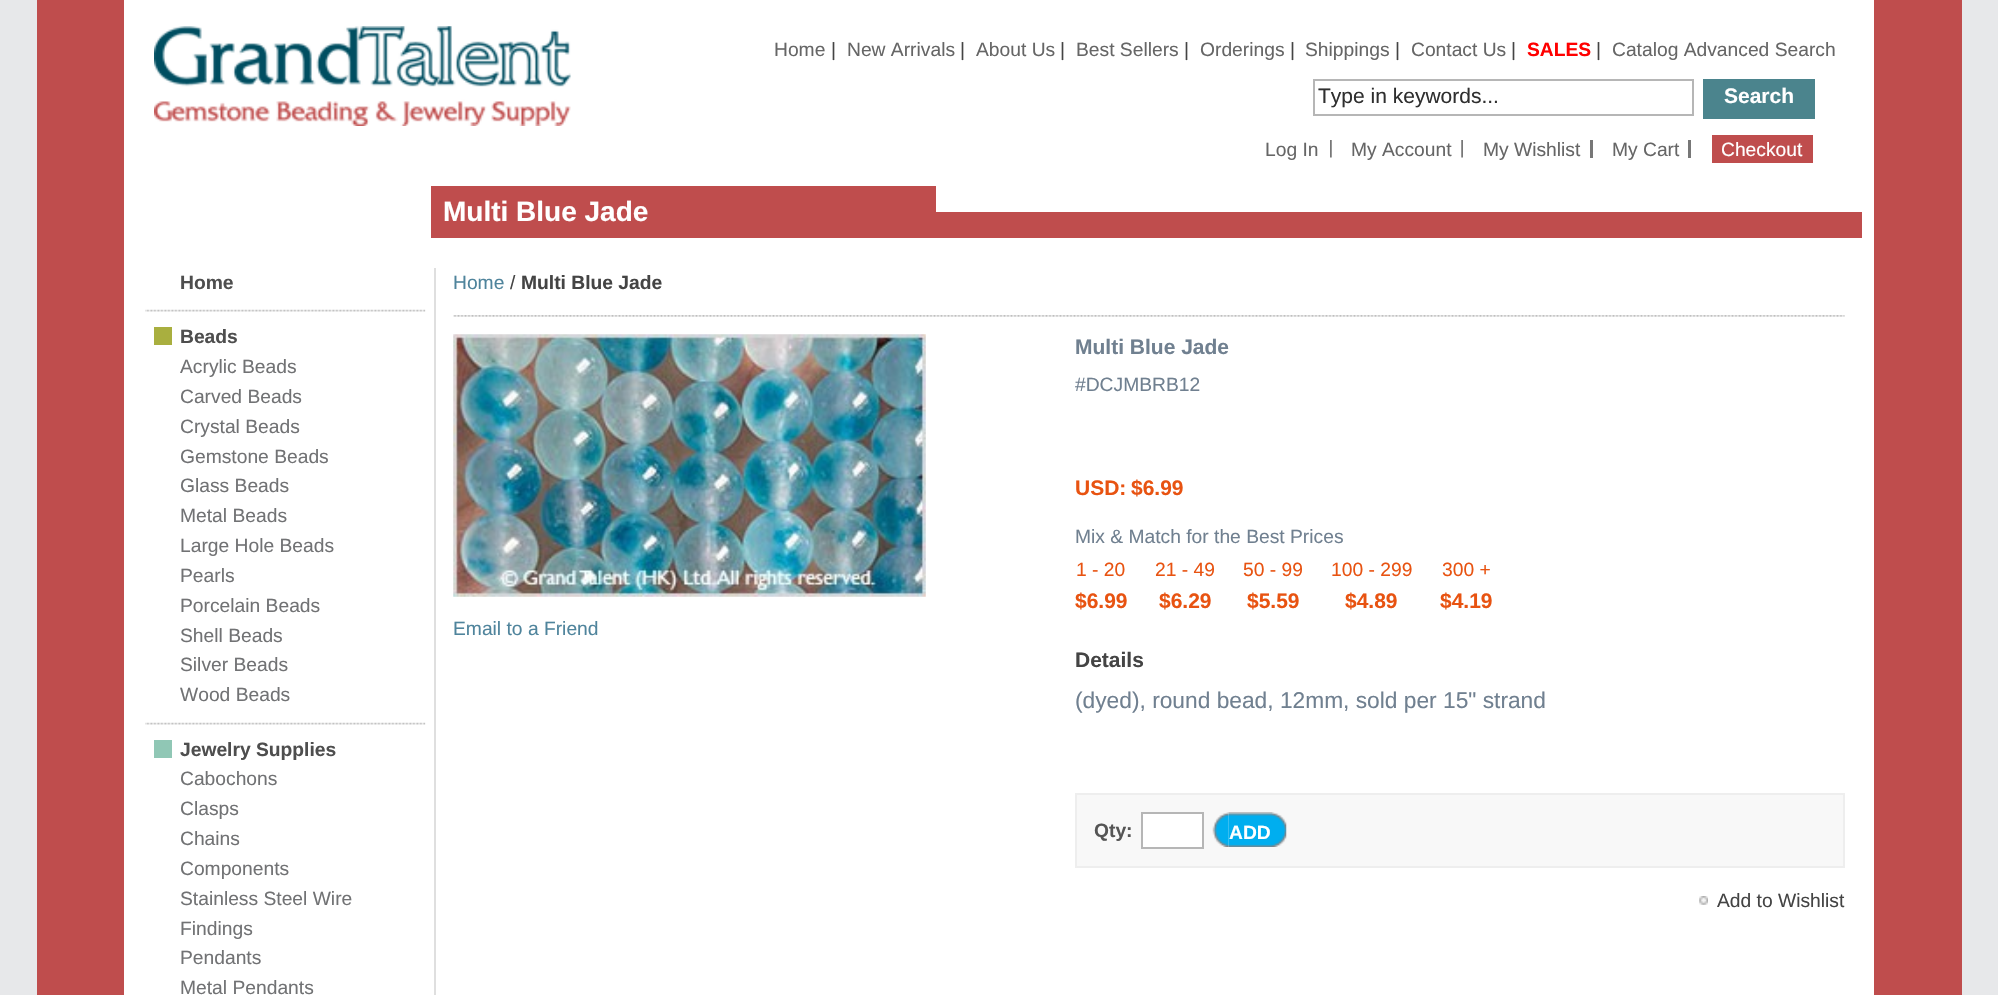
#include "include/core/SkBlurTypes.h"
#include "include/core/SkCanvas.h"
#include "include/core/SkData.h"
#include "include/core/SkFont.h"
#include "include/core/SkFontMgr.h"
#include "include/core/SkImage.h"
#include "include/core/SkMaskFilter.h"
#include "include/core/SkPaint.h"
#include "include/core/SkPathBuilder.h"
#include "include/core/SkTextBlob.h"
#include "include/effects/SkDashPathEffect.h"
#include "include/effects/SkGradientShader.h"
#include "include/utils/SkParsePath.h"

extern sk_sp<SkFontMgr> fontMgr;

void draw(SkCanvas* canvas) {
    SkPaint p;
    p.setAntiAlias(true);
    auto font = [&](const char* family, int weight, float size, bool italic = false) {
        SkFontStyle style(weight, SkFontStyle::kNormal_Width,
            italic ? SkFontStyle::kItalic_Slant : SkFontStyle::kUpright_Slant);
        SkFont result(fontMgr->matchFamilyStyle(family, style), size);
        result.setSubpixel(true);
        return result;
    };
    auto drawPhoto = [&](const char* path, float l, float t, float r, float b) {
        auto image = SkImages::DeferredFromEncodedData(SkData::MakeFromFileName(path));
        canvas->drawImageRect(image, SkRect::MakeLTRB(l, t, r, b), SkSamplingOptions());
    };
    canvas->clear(0xFFE7E8EA);
    p.setColor(0xFFBF4D4D);
    canvas->drawRect(SkRect::MakeLTRB(37, 0, 1962, 995), p);
    p.setColor(0xFFFFFFFF);
    canvas->drawRect(SkRect::MakeLTRB(124, 0, 1874, 995), p);
    drawPhoto("media/1.png", 154, 26, 571, 126);
    auto font1 = font("Liberation Sans", 400, 19.25f);
    p.setColor(0xFF666666);
    canvas->drawString("Home", 774, 56, font1, p);
    p.setColor(0xFF444444);
    canvas->drawString("|", 831, 56, font1, p);
    p.setColor(0xFF666666);
    canvas->drawString("New Arrivals", 847, 56, font1, p);
    p.setColor(0xFF444444);
    canvas->drawString("|", 960, 56, font1, p);
    p.setColor(0xFF666666);
    canvas->drawString("About Us", 976, 56, font1, p);
    p.setColor(0xFF444444);
    canvas->drawString("|", 1060, 56, font1, p);
    p.setColor(0xFF666666);
    canvas->drawString("Best Sellers", 1076, 56, font1, p);
    p.setColor(0xFF444444);
    canvas->drawString("|", 1184, 56, font1, p);
    p.setColor(0xFF666666);
    canvas->drawString("Orderings", 1200, 56, font1, p);
    p.setColor(0xFF444444);
    canvas->drawString("|", 1290, 56, font1, p);
    p.setColor(0xFF666666);
    canvas->drawString("Shippings", 1305, 56, font1, p);
    p.setColor(0xFF444444);
    canvas->drawString("|", 1395, 56, font1, p);
    p.setColor(0xFF666666);
    canvas->drawString("Contact Us", 1411, 56, font1, p);
    p.setColor(0xFF444444);
    canvas->drawString("|", 1511, 56, font1, p);
    auto font2 = font("Liberation Sans", 700, 19.25f);
    p.setColor(0xFFFF0000);
    canvas->drawString("SALES", 1527, 56, font2, p);
    p.setColor(0xFF444444);
    canvas->drawString("|", 1596, 56, font1, p);
    p.setColor(0xFF666666);
    canvas->drawString("Catalog Advanced Search", 1612, 56, font1, p);
    p.setStyle(SkPaint::kStroke_Style);
    p.setStrokeWidth(2);
    p.setColor(0xFFB6B6B6);
    canvas->drawRect(SkRect::MakeLTRB(1314, 80, 1693, 115), p);
    auto font3 = font("Liberation Sans", 400, 21);
    p.setStyle(SkPaint::kFill_Style);
    p.setColor(0xFF2F2F2F);
    canvas->drawString("Type in keywords...", 1318, 103, font3, p);
    p.setColor(0xFF4B848D);
    canvas->drawRect(SkRect::MakeLTRB(1703, 79, 1815, 119), p);
    auto font4 = font("Liberation Sans", 700, 21);
    p.setColor(0xFFFFFFFF);
    canvas->drawString("Search", 1724, 103, font4, p);
    p.setColor(0xFF666666);
    canvas->drawString("Log In", 1265, 156, font1, p);
    drawPhoto("media/2.png", 1330, 140, 1332, 158);
    canvas->drawString("My Account", 1351, 156, font1, p);
    drawPhoto("media/3.png", 1461, 140, 1463, 158);
    canvas->drawString("My Wishlist", 1483, 156, font1, p);
    p.setColor(0xFF777777);
    canvas->drawRect(SkRect::MakeLTRB(1590, 140, 1593, 158), p);
    p.setColor(0xFF666666);
    canvas->drawString("My Cart", 1612, 156, font1, p);
    p.setColor(0xFF777777);
    canvas->drawRect(SkRect::MakeLTRB(1688, 140, 1691, 158), p);
    p.setColor(0xFFBF4D4D);
    canvas->drawRect(SkRect::MakeLTRB(1712, 135, 1813, 163), p);
    p.setColor(0xFFFFFFFF);
    canvas->drawString("Checkout", 1721, 156, font1, p);
    p.setColor(0xFFBF4D4D);
    canvas->drawRect(SkRect::MakeLTRB(431, 186, 936, 238), p);
    auto font5 = font("Liberation Sans", 700, 28);
    p.setColor(0xFFFFFFFF);
    canvas->drawString("Multi Blue Jade", 443, 221, font5, p);
    p.setColor(0xFFBF4D4D);
    canvas->drawRect(SkRect::MakeLTRB(936, 212, 1862, 238), p);
    p.setColor(0xFFDFDFDF);
    canvas->drawRect(SkRect::MakeLTRB(434, 268, 436, 995), p);
    p.setColor(0xFF4E4E4E);
    canvas->drawString("Home", 180, 289, font2, p);
    drawPhoto("media/4.png", 145, 309, 426, 312);
    canvas->drawString("Beads", 180, 343, font2, p);
    p.setColor(0xFFA9AF3F);
    canvas->drawRect(SkRect::MakeLTRB(154, 327, 172, 345), p);
    p.setColor(0xFF717274);
    {
        const struct { const char* s; float x, y; } items[] = {
            {"Acrylic Beads", 180, 373},
            {"Carved Beads", 180, 403},
            {"Crystal Beads", 180, 433},
            {"Gemstone Beads", 180, 463},
            {"Glass Beads", 180, 492},
            {"Metal Beads", 180, 522},
            {"Large Hole Beads", 180, 552},
            {"Pearls", 180, 582},
            {"Porcelain Beads", 180, 612},
            {"Shell Beads", 180, 642},
            {"Silver Beads", 180, 671},
            {"Wood Beads", 180, 701},
        };
        for (auto [s, x, y] : items) {
            canvas->drawString(s, x, y, font1, p);
        }
    }
    drawPhoto("media/4.png", 145, 722, 426, 725);
    p.setColor(0xFF4E4E4E);
    canvas->drawString("Jewelry Supplies", 180, 756, font2, p);
    p.setColor(0xFF90C7B5);
    canvas->drawRect(SkRect::MakeLTRB(154, 740, 172, 758), p);
    p.setColor(0xFF717274);
    {
        const struct { const char* s; float x, y; } items[] = {
            {"Cabochons", 180, 785},
            {"Clasps", 180, 815},
            {"Chains", 180, 845},
            {"Components", 180, 875},
            {"Stainless Steel Wire", 180, 905},
            {"Findings", 180, 935},
            {"Pendants", 180, 964},
            {"Metal Pendants", 180, 994},
        };
        for (auto [s, x, y] : items) {
            canvas->drawString(s, x, y, font1, p);
        }
    }
    drawPhoto("media/5.png", 453, 315, 1845, 317);
    p.setColor(0xFF4F849C);
    canvas->drawString("Home", 453, 289, font1, p);
    p.setColor(0xFF444444);
    canvas->drawString("/", 510, 289, font1, p);
    canvas->drawString("Multi Blue Jade", 521, 289, font2, p);
    drawPhoto("media/6.png", 453, 334, 926, 597);
    p.setColor(0xFF4F849C);
    canvas->drawString("Email to a Friend", 453, 635, font1, p);
    p.setColor(0xFF708090);
    canvas->drawString("Multi Blue Jade", 1075, 354, font4, p);
    canvas->drawString("#DCJMBRB12", 1075, 391, font1, p);
    p.setColor(0xFFE85311);
    canvas->drawString("USD:", 1075, 495, font4, p);
    canvas->drawString("$6.99", 1131, 495, font4, p);
    p.setColor(0xFF708090);
    canvas->drawString("Mix & Match for the Best Prices", 1075, 543, font1, p);
    p.setColor(0xFFE85311);
    canvas->drawString("1 - 20", 1076, 576, font1, p);
    canvas->drawString("$6.99", 1075, 608, font4, p);
    canvas->drawString("21 - 49", 1155, 576, font1, p);
    canvas->drawString("$6.29", 1159, 608, font4, p);
    canvas->drawString("50 - 99", 1243, 576, font1, p);
    canvas->drawString("$5.59", 1247, 608, font4, p);
    canvas->drawString("100 - 299", 1331, 576, font1, p);
    canvas->drawString("$4.89", 1345, 608, font4, p);
    canvas->drawString("300 +", 1442, 576, font1, p);
    canvas->drawString("$4.19", 1440, 608, font4, p);
    p.setColor(0xFF444444);
    canvas->drawString("Details", 1075, 667, font4, p);
    auto font6 = font("Liberation Sans", 400, 22.75f);
    p.setColor(0xFF708090);
    canvas->drawString("(dyed), round bead, 12mm, sold per 15\" strand", 1075, 708, font6, p);
    p.setColor(0xFFF8F8F8);
    canvas->drawRect(SkRect::MakeLTRB(1076, 794, 1844, 867), p);
    p.setStyle(SkPaint::kStroke_Style);
    p.setColor(0xFFEEEEEE);
    canvas->drawRect(SkRect::MakeLTRB(1076, 794, 1844, 867), p);
    p.setStyle(SkPaint::kFill_Style);
    p.setColor(0xFF555555);
    canvas->drawString("Qty:", 1094, 837, font2, p);
    p.setColor(0xFFFFFFFF);
    canvas->drawRect(SkRect::MakeLTRB(1142, 813, 1203, 848), p);
    p.setStyle(SkPaint::kStroke_Style);
    p.setColor(0xFFB6B6B6);
    canvas->drawRect(SkRect::MakeLTRB(1142, 813, 1203, 848), p);
    drawPhoto("media/7.png", 1212, 812, 1229, 847);
    drawPhoto("media/8.png", 1228, 812, 1287, 847);
    p.setStyle(SkPaint::kFill_Style);
    p.setColor(0xFFFFFFFF);
    canvas->drawString("ADD", 1229, 839, font2, p);
    drawPhoto("media/9.png", 1699, 896, 1708, 905);
    p.setColor(0xFF444444);
    canvas->drawString("Add to Wishlist", 1717, 907, font1, p);
}
